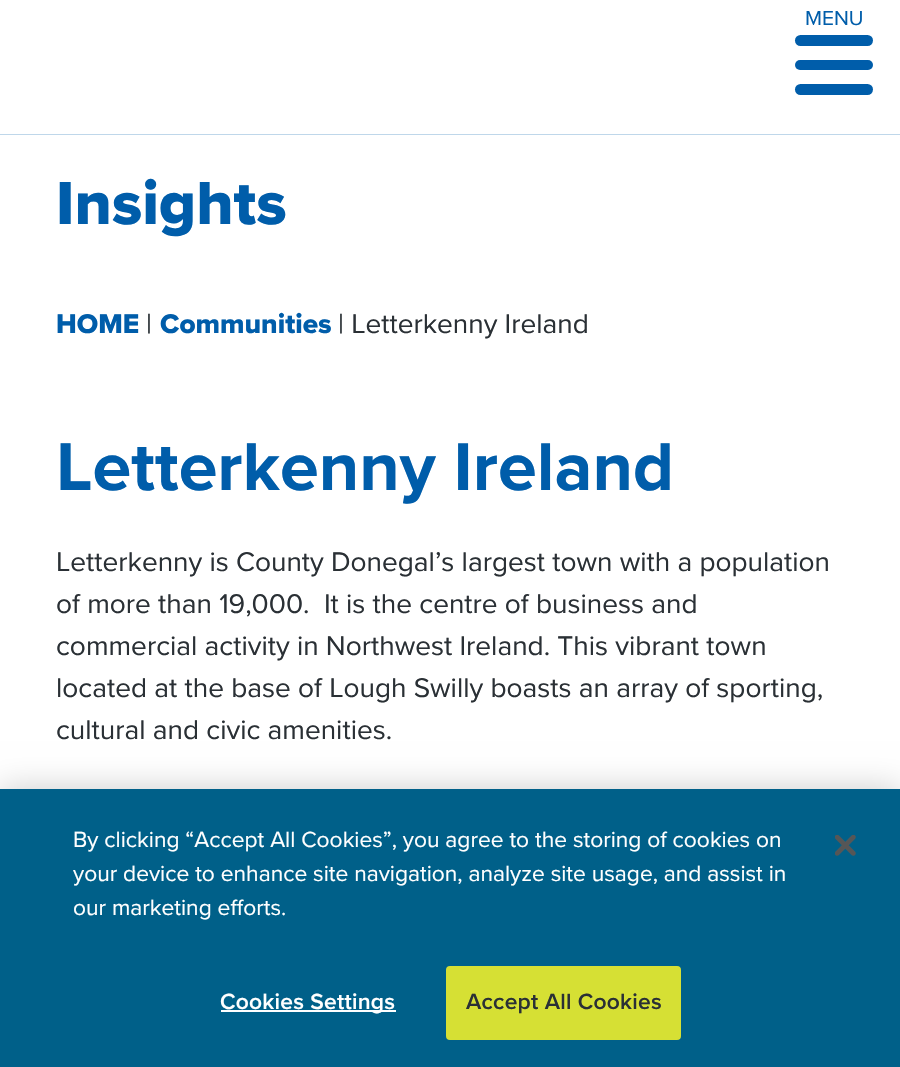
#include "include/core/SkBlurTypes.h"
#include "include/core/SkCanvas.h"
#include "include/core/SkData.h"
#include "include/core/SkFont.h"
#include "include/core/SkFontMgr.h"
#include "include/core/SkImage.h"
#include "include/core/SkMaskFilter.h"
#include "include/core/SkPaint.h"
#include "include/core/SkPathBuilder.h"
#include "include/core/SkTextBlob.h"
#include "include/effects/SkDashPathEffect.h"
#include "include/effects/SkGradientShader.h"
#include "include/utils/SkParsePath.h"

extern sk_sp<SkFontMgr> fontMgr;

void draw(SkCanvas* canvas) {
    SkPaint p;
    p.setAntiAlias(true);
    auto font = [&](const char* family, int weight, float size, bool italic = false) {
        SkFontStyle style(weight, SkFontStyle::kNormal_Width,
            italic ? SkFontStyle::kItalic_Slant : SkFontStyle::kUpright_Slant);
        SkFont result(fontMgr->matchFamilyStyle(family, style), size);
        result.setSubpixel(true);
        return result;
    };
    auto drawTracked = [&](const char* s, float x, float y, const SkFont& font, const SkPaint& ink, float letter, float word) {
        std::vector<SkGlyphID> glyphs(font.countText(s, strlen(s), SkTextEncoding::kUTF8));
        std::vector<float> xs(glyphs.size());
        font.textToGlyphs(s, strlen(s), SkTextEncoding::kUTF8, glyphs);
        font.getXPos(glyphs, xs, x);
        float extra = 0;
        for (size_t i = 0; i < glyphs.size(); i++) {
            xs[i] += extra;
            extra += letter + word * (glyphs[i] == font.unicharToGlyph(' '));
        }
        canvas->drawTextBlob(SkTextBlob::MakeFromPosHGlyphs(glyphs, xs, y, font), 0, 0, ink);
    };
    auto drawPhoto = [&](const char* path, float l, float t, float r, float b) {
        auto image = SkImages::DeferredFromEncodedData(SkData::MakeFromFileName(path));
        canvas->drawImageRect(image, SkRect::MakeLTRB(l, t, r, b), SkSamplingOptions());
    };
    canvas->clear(0xFFFFFFFF);
    auto font1 = font("Proxima Nova", 400, 21);
    p.setColor(0xFF005DAA);
    canvas->drawString("MENU", 805, 25, font1, p);
    canvas->drawRoundRect(SkRect::MakeLTRB(795, 35, 873, 46), 5.5f, 5.5f, p);
    canvas->drawRoundRect(SkRect::MakeLTRB(795, 60, 873, 70), 5, 5, p);
    canvas->drawRoundRect(SkRect::MakeLTRB(795, 84, 873, 95), 5.5f, 5.5f, p);
    drawPhoto("media/1.png", 0, 134, 900, 135);
    auto font2 = font("Proxima Nova", 800, 63);
    canvas->drawString("Insights", 56, 224, font2, p);
    auto font3 = font("Proxima Nova", 800, 28);
    canvas->drawString("HOME", 56, 333, font3, p);
    auto font4 = font("Proxima Nova", 400, 28);
    p.setColor(0xFF2A3035);
    canvas->drawString("|", 146, 333, font4, p);
    p.setColor(0xFF005DAA);
    canvas->drawString("Communities", 160, 333, font3, p);
    p.setColor(0xFF2A3035);
    canvas->drawString("| Letterkenny Ireland", 338, 333, font4, p);
    auto font5 = font("Proxima Nova", 700, 70);
    p.setColor(0xFF005DAA);
    canvas->drawString("Letterkenny Ireland", 56, 490, font5, p);
    p.setColor(0xFF2A3035);
    {
        const struct { const char* s; float x, y; } items[] = {
            {"Letterkenny is County Donegal’s largest town with a population", 56, 571},
            {"of more than 19,000.  It is the centre of business and", 56, 613},
            {"commercial activity in Northwest Ireland. This vibrant town", 56, 655},
            {"located at the base of Lough Swilly boasts an array of sporting,", 56, 697},
            {"cultural and civic amenities.", 56, 739},
        };
        for (auto [s, x, y] : items) {
            canvas->drawString(s, x, y, font4, p);
        }
    }
    p.setColor(0x33000000);
    p.setMaskFilter(SkMaskFilter::MakeBlur(kNormal_SkBlurStyle, 16));
    canvas->drawRect(SkRect::MakeLTRB(0, 789, 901, 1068), p);
    p.setMaskFilter(nullptr);
    p.setColor(0xFF006089);
    canvas->drawRect(SkRect::MakeLTRB(0, 789, 900, 1067), p);
    auto font6 = font("Proxima Nova", 400, 22.75f);
    p.setColor(0xFFFFFFFF);
    {
        const struct { const char* s; float x, y; } items[] = {
            {"By clicking “Accept All Cookies”, you agree to the storing of cookies on", 73, 847},
            {"your device to enhance site navigation, analyze site usage, and assist in", 73, 881},
            {"our marketing efforts.", 73, 915},
        };
        for (auto [s, x, y] : items) {
            canvas->drawString(s, x, y, font6, p);
        }
    }
    canvas->drawRect(SkRect::MakeLTRB(221, 1010, 396, 1012), p);
    auto font7 = font("Proxima Nova", 600, 22.75f);
    drawTracked("Cookies Settings", 220, 1009, font7, p, 0.25f, 0);
    p.setColor(0xFFD6E034);
    canvas->drawRoundRect(SkRect::MakeLTRB(447, 967, 680, 1039), 3, 3, p);
    p.setStyle(SkPaint::kStroke_Style);
    p.setStrokeWidth(2);
    canvas->drawRoundRect(SkRect::MakeLTRB(447, 967, 680, 1039), 3, 3, p);
    p.setStyle(SkPaint::kFill_Style);
    p.setColor(0xFF2A3035);
    drawTracked("Accept All Cookies", 466, 1009, font7, p, 0.25f, 0);
    drawPhoto("media/2.png", 835, 835, 856, 856);
}
